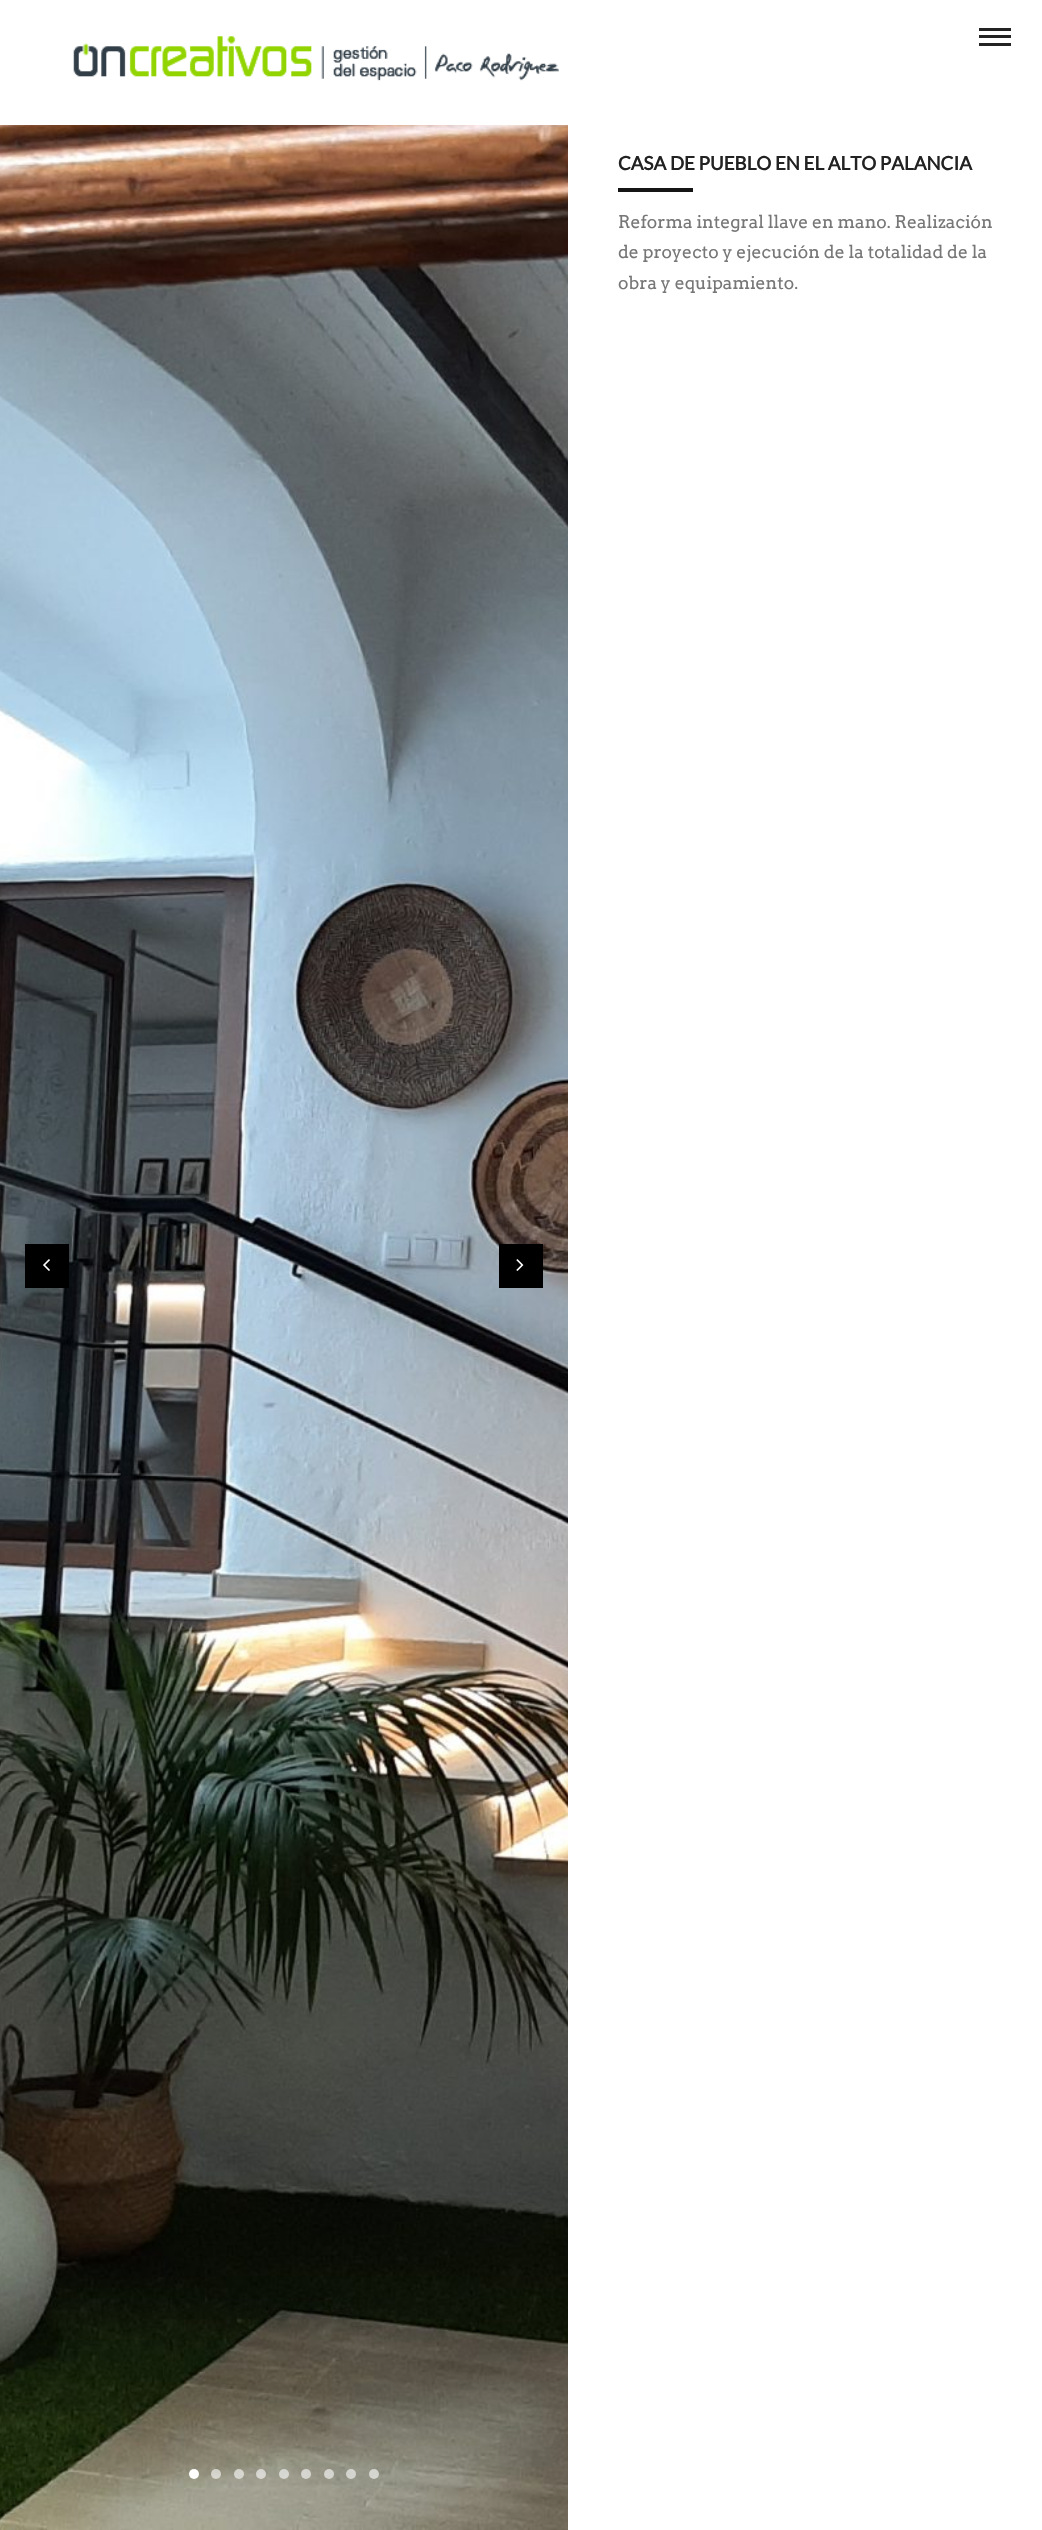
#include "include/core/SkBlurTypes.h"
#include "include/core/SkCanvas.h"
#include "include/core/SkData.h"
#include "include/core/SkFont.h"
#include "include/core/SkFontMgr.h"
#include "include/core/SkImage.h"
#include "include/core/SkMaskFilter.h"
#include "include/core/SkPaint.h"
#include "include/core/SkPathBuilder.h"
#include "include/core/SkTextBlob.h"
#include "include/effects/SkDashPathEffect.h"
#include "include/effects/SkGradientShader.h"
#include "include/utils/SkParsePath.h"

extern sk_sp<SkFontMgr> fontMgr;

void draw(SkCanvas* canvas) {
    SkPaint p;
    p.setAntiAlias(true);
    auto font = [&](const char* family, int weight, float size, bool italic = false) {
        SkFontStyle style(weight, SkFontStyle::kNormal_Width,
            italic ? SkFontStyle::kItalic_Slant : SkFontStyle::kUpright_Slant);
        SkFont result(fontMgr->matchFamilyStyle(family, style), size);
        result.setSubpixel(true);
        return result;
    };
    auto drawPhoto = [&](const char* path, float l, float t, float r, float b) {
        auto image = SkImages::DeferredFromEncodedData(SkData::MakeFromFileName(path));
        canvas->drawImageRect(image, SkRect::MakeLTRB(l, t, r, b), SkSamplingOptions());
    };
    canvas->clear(0xFFFFFFFF);
    drawPhoto("media/1.png", 73, 36, 559, 81);
    {
        const struct { float l, t, r, b; SkColor color; } items[] = {
            {979, 35, 1011, 38, 0xFF232323},
            {979, 28, 1011, 31, 0xFF232323},
            {979, 43, 1011, 46, 0xFF232323},
        };
        for (auto [l, t, r, b, color] : items) {
            p.setColor(color);
            canvas->drawRect(SkRect::MakeLTRB(l, t, r, b), p);
        }
    }
    drawPhoto("media/2.png", 0, 125, 568, 2530);
    p.setColor(0xFF000000);
    canvas->drawRect(SkRect::MakeLTRB(25, 1244, 69, 1288), p);
    drawPhoto("media/3.png", 43, 1259, 50, 1271);
    canvas->drawRect(SkRect::MakeLTRB(499, 1244, 543, 1288), p);
    drawPhoto("media/4.png", 516, 1259, 524, 1271);
    p.setColor(0xFFFFFFFF);
    canvas->drawCircle(194, 2474, 5, p);
    p.setColor(0x99FFFFFF);
    canvas->drawCircle(216, 2474, 5, p);
    canvas->drawCircle(239, 2474, 5, p);
    canvas->drawCircle(261, 2474, 5, p);
    canvas->drawCircle(284, 2474, 5, p);
    canvas->drawCircle(306, 2474, 5, p);
    canvas->drawCircle(329, 2474, 5, p);
    canvas->drawCircle(351, 2474, 5, p);
    canvas->drawCircle(374, 2474, 5, p);
    auto font1 = font("Lato", 700, 18.75f);
    p.setColor(0xFF222222);
    canvas->drawString("CASA DE PUEBLO EN EL ALTO PALANCIA", 618, 170, font1, p);
    p.setColor(0xFF151515);
    canvas->drawRect(SkRect::MakeLTRB(618, 188, 693, 192), p);
    auto font2 = font("Arvo", 400, 17.5f);
    p.setColor(0xFF777777);
    {
        const struct { const char* s; float x, y; } items[] = {
            {"Reforma integral llave en mano. Realización", 618, 228},
            {"de proyecto y ejecución de la totalidad de la", 618, 258},
            {"obra y equipamiento.", 618, 289},
        };
        for (auto [s, x, y] : items) {
            canvas->drawString(s, x, y, font2, p);
        }
    }
}
